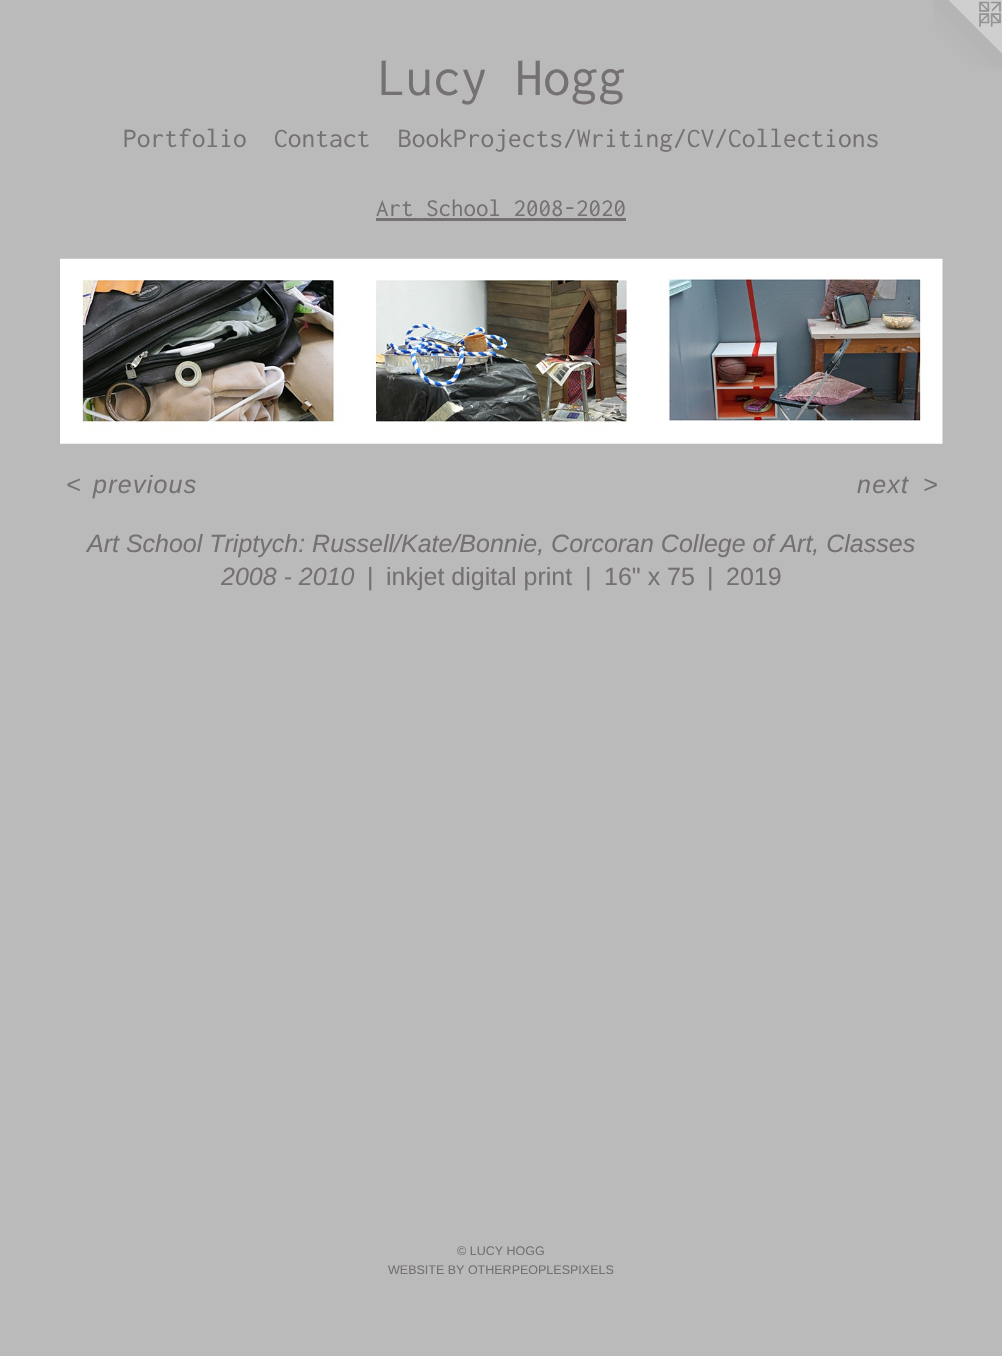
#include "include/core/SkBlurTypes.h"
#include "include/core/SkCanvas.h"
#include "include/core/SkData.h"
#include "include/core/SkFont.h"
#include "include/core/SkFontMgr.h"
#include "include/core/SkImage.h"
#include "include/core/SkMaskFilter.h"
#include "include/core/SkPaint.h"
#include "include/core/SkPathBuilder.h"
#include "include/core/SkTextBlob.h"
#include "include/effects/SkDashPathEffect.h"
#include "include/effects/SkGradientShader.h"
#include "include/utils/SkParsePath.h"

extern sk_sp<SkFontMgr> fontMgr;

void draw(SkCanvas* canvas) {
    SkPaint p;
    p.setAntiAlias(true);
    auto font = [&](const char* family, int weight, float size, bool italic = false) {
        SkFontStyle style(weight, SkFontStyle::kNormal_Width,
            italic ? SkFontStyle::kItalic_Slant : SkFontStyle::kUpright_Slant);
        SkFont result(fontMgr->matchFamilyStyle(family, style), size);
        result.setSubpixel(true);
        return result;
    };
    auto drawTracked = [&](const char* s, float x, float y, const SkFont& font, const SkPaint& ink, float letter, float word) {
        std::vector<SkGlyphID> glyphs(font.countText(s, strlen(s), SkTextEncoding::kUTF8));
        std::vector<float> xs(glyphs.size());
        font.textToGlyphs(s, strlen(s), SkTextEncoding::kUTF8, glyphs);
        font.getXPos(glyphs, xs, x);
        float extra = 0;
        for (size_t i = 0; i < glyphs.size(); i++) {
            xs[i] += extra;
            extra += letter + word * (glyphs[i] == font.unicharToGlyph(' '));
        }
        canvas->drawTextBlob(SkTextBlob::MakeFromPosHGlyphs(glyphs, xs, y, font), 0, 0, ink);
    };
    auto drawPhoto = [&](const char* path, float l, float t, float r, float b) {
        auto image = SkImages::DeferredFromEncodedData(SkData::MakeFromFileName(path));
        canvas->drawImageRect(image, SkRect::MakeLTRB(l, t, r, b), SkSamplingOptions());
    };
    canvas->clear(0xFFBABABA);
    drawPhoto("media/1.png", 933, 0, 1002, 69);
    auto font1 = font("Inconsolata", 400, 55);
    p.setColor(0xFF757171);
    canvas->drawString("Lucy Hogg", 378, 95, font1, p);
    auto font2 = font("Inconsolata", 400, 27.5f);
    {
        const struct { const char* s; float x, y; } items[] = {
            {"Portfolio", 123, 147},
            {"Contact", 274, 147},
            {"BookProjects/Writing/CV/Collections", 398, 147},
        };
        for (auto [s, x, y] : items) {
            canvas->drawString(s, x, y, font2, p);
        }
    }
    auto font3 = font("Inconsolata", 400, 25);
    canvas->drawString("Art School 2008-2020", 376, 216, font3, p);
    canvas->drawRect(SkRect::MakeLTRB(376, 218, 626, 221), p);
    drawPhoto("media/2.png", 60, 258, 943, 444);
    auto font4 = font("Liberation Sans", 400, 25, true);
    {
        const struct { const char* s; float x, y; } items[] = {
            {"<", 66, 493},
            {"previous", 93, 493},
            {"next", 857, 493},
            {">", 923, 493},
        };
        for (auto [s, x, y] : items) {
            drawTracked(s, x, y, font4, p, 1.25f, 0);
        }
    }
    canvas->drawString("Art School Triptych: Russell/Kate/Bonnie, Corcoran College of Art, Classes", 87, 552, font4, p);
    canvas->drawString("2008 - 2010", 221, 585, font4, p);
    auto font5 = font("Liberation Sans", 400, 25);
    {
        const struct { const char* s; float x, y; } items[] = {
            {"|", 367, 585},
            {"inkjet digital print", 386, 585},
            {"|", 585, 585},
            {"16\" x 75", 604, 585},
            {"|", 707, 585},
            {"2019", 726, 585},
        };
        for (auto [s, x, y] : items) {
            canvas->drawString(s, x, y, font5, p);
        }
    }
    auto font6 = font("Liberation Sans", 400, 12.5f);
    canvas->drawString("© LUCY HOGG", 457, 1255, font6, p);
    canvas->drawString("WEBSITE BY OTHERPEOPLESPIXELS", 388, 1274, font6, p);
}
